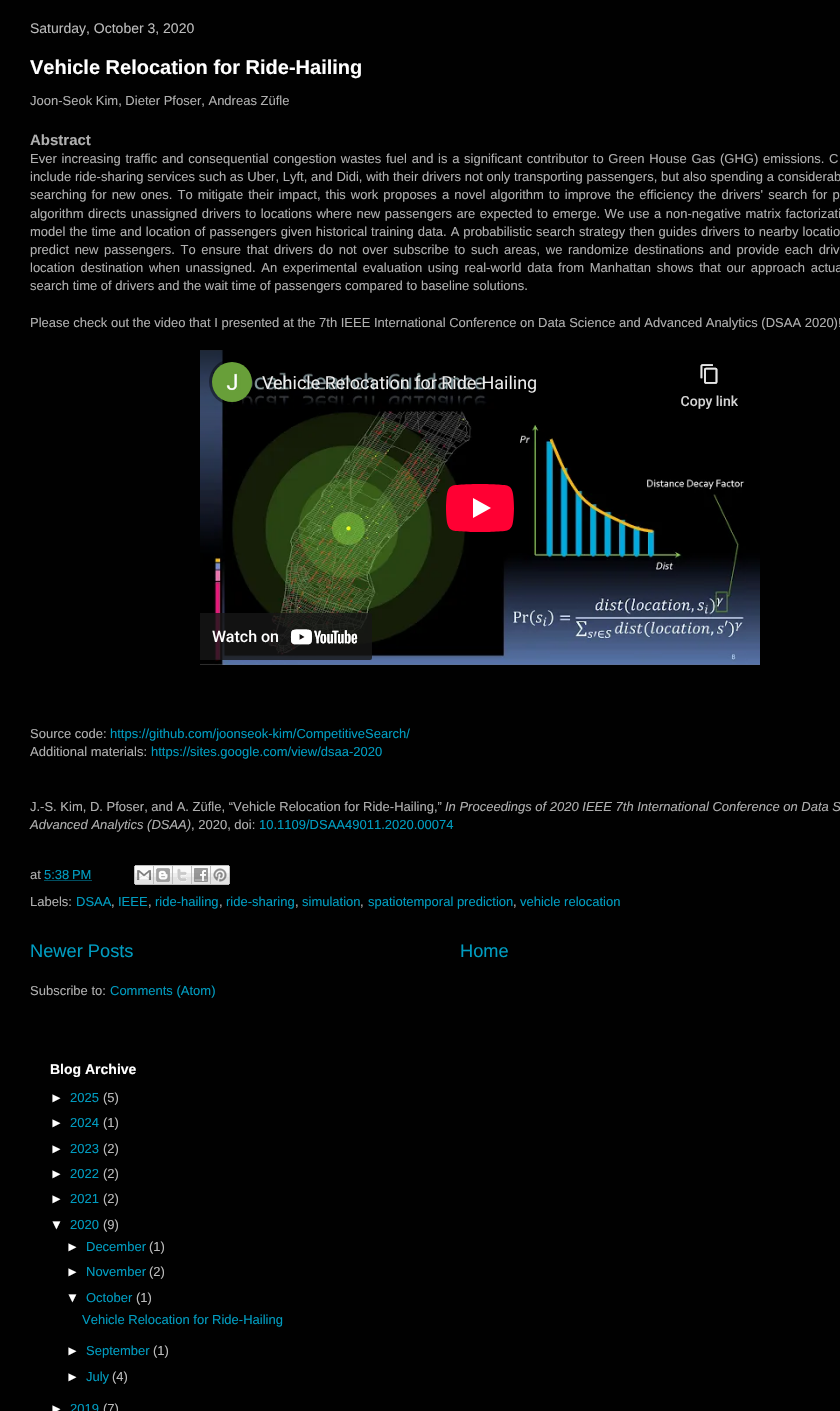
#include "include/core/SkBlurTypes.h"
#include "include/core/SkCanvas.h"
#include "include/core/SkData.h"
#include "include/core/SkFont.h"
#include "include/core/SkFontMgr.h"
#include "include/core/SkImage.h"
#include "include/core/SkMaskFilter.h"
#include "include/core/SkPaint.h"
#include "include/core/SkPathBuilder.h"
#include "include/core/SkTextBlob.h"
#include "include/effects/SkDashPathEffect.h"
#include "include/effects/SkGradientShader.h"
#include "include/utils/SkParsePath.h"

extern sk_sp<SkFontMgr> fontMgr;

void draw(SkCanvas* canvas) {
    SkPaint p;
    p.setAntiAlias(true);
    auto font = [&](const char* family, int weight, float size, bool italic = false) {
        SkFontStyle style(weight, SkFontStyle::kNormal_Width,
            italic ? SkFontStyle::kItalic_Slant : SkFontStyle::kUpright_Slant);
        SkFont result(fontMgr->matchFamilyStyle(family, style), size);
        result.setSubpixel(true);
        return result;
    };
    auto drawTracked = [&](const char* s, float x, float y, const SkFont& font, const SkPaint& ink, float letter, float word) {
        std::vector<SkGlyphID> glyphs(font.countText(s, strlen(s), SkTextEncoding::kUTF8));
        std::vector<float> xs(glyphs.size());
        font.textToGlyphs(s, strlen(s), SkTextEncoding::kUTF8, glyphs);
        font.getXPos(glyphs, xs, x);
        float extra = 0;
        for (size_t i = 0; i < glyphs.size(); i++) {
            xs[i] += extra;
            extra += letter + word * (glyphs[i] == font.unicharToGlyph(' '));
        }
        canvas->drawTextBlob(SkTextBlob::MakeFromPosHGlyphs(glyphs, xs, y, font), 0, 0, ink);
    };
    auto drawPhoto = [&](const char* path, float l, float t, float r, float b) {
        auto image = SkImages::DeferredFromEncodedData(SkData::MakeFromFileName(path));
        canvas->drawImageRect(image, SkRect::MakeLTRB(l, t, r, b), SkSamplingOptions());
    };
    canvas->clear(0xFF010101);
    auto font1 = font("Liberation Sans", 400, 14);
    p.setColor(0xFFBBBBBB);
    canvas->drawString("Saturday, October 3, 2020", 30, 33, font1, p);
    auto font2 = font("Liberation Sans", 700, 20);
    p.setColor(0xFFFFFFFF);
    canvas->drawString("Vehicle Relocation for Ride-Hailing", 30, 74, font2, p);
    auto font3 = font("Liberation Sans", 400, 13);
    p.setColor(0xFFAFAFAF);
    canvas->drawString("Joon-Seok Kim, Dieter Pfoser, Andreas Züfle", 30, 105, font3, p);
    auto font4 = font("Liberation Sans", 700, 15);
    canvas->drawString("Abstract", 30, 145, font4, p);
    drawTracked("Ever increasing traffic and consequential congestion wastes fuel and is a significant contributor to Green House Gas (GHG) emissions. C", 30, 163, font3, p, 0, 1.1f);
    drawTracked("include ride-sharing services such as Uber, Lyft, and Didi, with their drivers not only transporting passengers, but also spending a considerab", 30, 181, font3, p, 0, 0.1f);
    drawTracked("searching for new ones. To mitigate their impact, this work proposes a novel algorithm to improve the efficiency the drivers' search for p", 30, 199, font3, p, 0, 1.45f);
    drawTracked("algorithm directs unassigned drivers to locations where new passengers are expected to emerge. We use a non-negative matrix factorizati", 30, 218, font3, p, 0, 0.9f);
    drawTracked("model the time and location of passengers given historical training data. A probabilistic search strategy then guides drivers to nearby locatio", 30, 236, font3, p, 0, 0.4f);
    drawTracked("predict new passengers. To ensure that drivers do not over subscribe to such areas, we randomize destinations and provide each driv", 30, 254, font3, p, 0, 2);
    drawTracked("location destination when unassigned. An experimental evaluation using real-world data from Manhattan shows that our approach actua", 30, 272, font3, p, 0, 2);
    canvas->drawString("search time of drivers and the wait time of passengers compared to baseline solutions.", 30, 290, font3, p);
    canvas->drawString("Please check out the video that I presented at the 7th IEEE International Conference on Data Science and Advanced Analytics (DSAA 2020)!", 30, 327, font3, p);
    drawPhoto("media/1.png", 200, 350, 760, 665);
    canvas->drawString("Source code:", 30, 738, font3, p);
    p.setColor(0xFF009CC0);
    canvas->drawString("https://github.com/joonseok-kim/CompetitiveSearch/", 110, 738, font3, p);
    p.setColor(0xFFAFAFAF);
    canvas->drawString("Additional materials:", 30, 756, font3, p);
    p.setColor(0xFF009CC0);
    canvas->drawString("https://sites.google.com/view/dsaa-2020", 151, 756, font3, p);
    p.setColor(0xFFAFAFAF);
    canvas->drawString("J.-S. Kim, D. Pfoser, and A. Züfle, “Vehicle Relocation for Ride-Hailing,”", 30, 811, font3, p);
    auto font5 = font("Liberation Sans", 400, 13, true);
    canvas->drawString("In Proceedings of 2020 IEEE 7th International Conference on Data S", 445, 811, font5, p);
    canvas->drawString("Advanced Analytics (DSAA)", 30, 829, font5, p);
    canvas->drawString(", 2020, doi:", 191, 829, font3, p);
    p.setColor(0xFF009CC0);
    canvas->drawString("10.1109/DSAA49011.2020.00074", 259, 829, font3, p);
    p.setColor(0xFFAFAFAF);
    canvas->drawString("at", 30, 879, font3, p);
    p.setColor(0xFF009CC0);
    canvas->drawString("5:38 PM", 44, 879, font3, p);
    p.setStyle(SkPaint::kStroke_Style);
    p.setStrokeWidth(1);
    p.setPathEffect(SkDashPathEffect::Make({{1, 1}}, 0));
    canvas->drawPath(SkPathBuilder().moveTo(44.5f, 880.5f).lineTo(92, 880.5f).detach(), p);
    p.setPathEffect(nullptr);
    drawPhoto("media/2.png", 134, 865, 154, 885);
    drawPhoto("media/3.png", 154, 865, 173, 885);
    drawPhoto("media/4.png", 173, 865, 192, 885);
    drawPhoto("media/5.png", 192, 865, 211, 885);
    drawPhoto("media/6.png", 211, 865, 230, 885);
    p.setStyle(SkPaint::kFill_Style);
    p.setColor(0xFFAFAFAF);
    canvas->drawString("Labels:", 30, 906, font3, p);
    p.setColor(0xFF009CC0);
    canvas->drawString("DSAA", 76, 906, font3, p);
    p.setColor(0xFFAFAFAF);
    canvas->drawString(",", 111, 906, font3, p);
    p.setColor(0xFF009CC0);
    canvas->drawString("IEEE", 118, 906, font3, p);
    p.setColor(0xFFAFAFAF);
    canvas->drawString(",", 148, 906, font3, p);
    p.setColor(0xFF009CC0);
    canvas->drawString("ride-hailing", 155, 906, font3, p);
    p.setColor(0xFFAFAFAF);
    canvas->drawString(",", 219, 906, font3, p);
    p.setColor(0xFF009CC0);
    canvas->drawString("ride-sharing", 226, 906, font3, p);
    p.setColor(0xFFAFAFAF);
    canvas->drawString(",", 295, 906, font3, p);
    p.setColor(0xFF009CC0);
    canvas->drawString("simulation", 302, 906, font3, p);
    p.setColor(0xFFAFAFAF);
    canvas->drawString(",", 360, 906, font3, p);
    p.setColor(0xFF009CC0);
    canvas->drawString("spatiotemporal prediction", 368, 906, font3, p);
    p.setColor(0xFFAFAFAF);
    canvas->drawString(",", 513, 906, font3, p);
    p.setColor(0xFF009CC0);
    canvas->drawString("vehicle relocation", 520, 906, font3, p);
    auto font6 = font("Liberation Sans", 400, 18.25f);
    canvas->drawString("Newer Posts", 30, 957, font6, p);
    canvas->drawString("Home", 460, 957, font6, p);
    p.setColor(0xFFAFAFAF);
    canvas->drawString("Subscribe to:", 30, 995, font3, p);
    p.setColor(0xFF009CC0);
    canvas->drawString("Comments (Atom)", 110, 995, font3, p);
    auto font7 = font("Liberation Sans", 700, 14);
    p.setColor(0xFFFFFFFF);
    canvas->drawString("Blog Archive", 50, 1074, font7, p);
    canvas->drawString("►", 50, 1102, font3, p);
    p.setColor(0xFF009CC0);
    canvas->drawString("2025", 70, 1102, font3, p);
    p.setColor(0xFFBBBBBB);
    canvas->drawString("(5)", 103, 1102, font3, p);
    p.setColor(0xFFFFFFFF);
    canvas->drawString("►", 50, 1127, font3, p);
    p.setColor(0xFF009CC0);
    canvas->drawString("2024", 70, 1127, font3, p);
    p.setColor(0xFFBBBBBB);
    canvas->drawString("(1)", 103, 1127, font3, p);
    p.setColor(0xFFFFFFFF);
    canvas->drawString("►", 50, 1153, font3, p);
    p.setColor(0xFF009CC0);
    canvas->drawString("2023", 70, 1153, font3, p);
    p.setColor(0xFFBBBBBB);
    canvas->drawString("(2)", 103, 1153, font3, p);
    p.setColor(0xFFFFFFFF);
    canvas->drawString("►", 50, 1178, font3, p);
    p.setColor(0xFF009CC0);
    canvas->drawString("2022", 70, 1178, font3, p);
    p.setColor(0xFFBBBBBB);
    canvas->drawString("(2)", 103, 1178, font3, p);
    p.setColor(0xFFFFFFFF);
    canvas->drawString("►", 50, 1203, font3, p);
    p.setColor(0xFF009CC0);
    canvas->drawString("2021", 70, 1203, font3, p);
    p.setColor(0xFFBBBBBB);
    canvas->drawString("(2)", 103, 1203, font3, p);
    p.setColor(0xFFFFFFFF);
    canvas->drawString("▼", 50, 1229, font3, p);
    p.setColor(0xFF009CC0);
    canvas->drawString("2020", 70, 1229, font3, p);
    p.setColor(0xFFBBBBBB);
    canvas->drawString("(9)", 103, 1229, font3, p);
    p.setColor(0xFFFFFFFF);
    canvas->drawString("►", 66, 1251, font3, p);
    p.setColor(0xFF009CC0);
    canvas->drawString("December", 86, 1251, font3, p);
    p.setColor(0xFFBBBBBB);
    canvas->drawString("(1)", 149, 1251, font3, p);
    p.setColor(0xFFFFFFFF);
    canvas->drawString("►", 66, 1276, font3, p);
    p.setColor(0xFF009CC0);
    canvas->drawString("November", 86, 1276, font3, p);
    p.setColor(0xFFBBBBBB);
    canvas->drawString("(2)", 149, 1276, font3, p);
    p.setColor(0xFFFFFFFF);
    canvas->drawString("▼", 66, 1302, font3, p);
    p.setColor(0xFF009CC0);
    canvas->drawString("October", 86, 1302, font3, p);
    p.setColor(0xFFBBBBBB);
    canvas->drawString("(1)", 136, 1302, font3, p);
    p.setColor(0xFF009CC0);
    canvas->drawString("Vehicle Relocation for Ride-Hailing", 82, 1324, font3, p);
    p.setColor(0xFFFFFFFF);
    canvas->drawString("►", 66, 1355, font3, p);
    p.setColor(0xFF009CC0);
    canvas->drawString("September", 86, 1355, font3, p);
    p.setColor(0xFFBBBBBB);
    canvas->drawString("(1)", 153, 1355, font3, p);
    p.setColor(0xFFFFFFFF);
    canvas->drawString("►", 66, 1381, font3, p);
    p.setColor(0xFF009CC0);
    canvas->drawString("July", 86, 1381, font3, p);
    p.setColor(0xFFBBBBBB);
    canvas->drawString("(4)", 112, 1381, font3, p);
    p.setColor(0xFFFFFFFF);
    canvas->drawString("►", 50, 1413, font3, p);
    p.setColor(0xFF009CC0);
    canvas->drawString("2019", 70, 1413, font3, p);
    p.setColor(0xFFBBBBBB);
    canvas->drawString("(7)", 103, 1413, font3, p);
}
